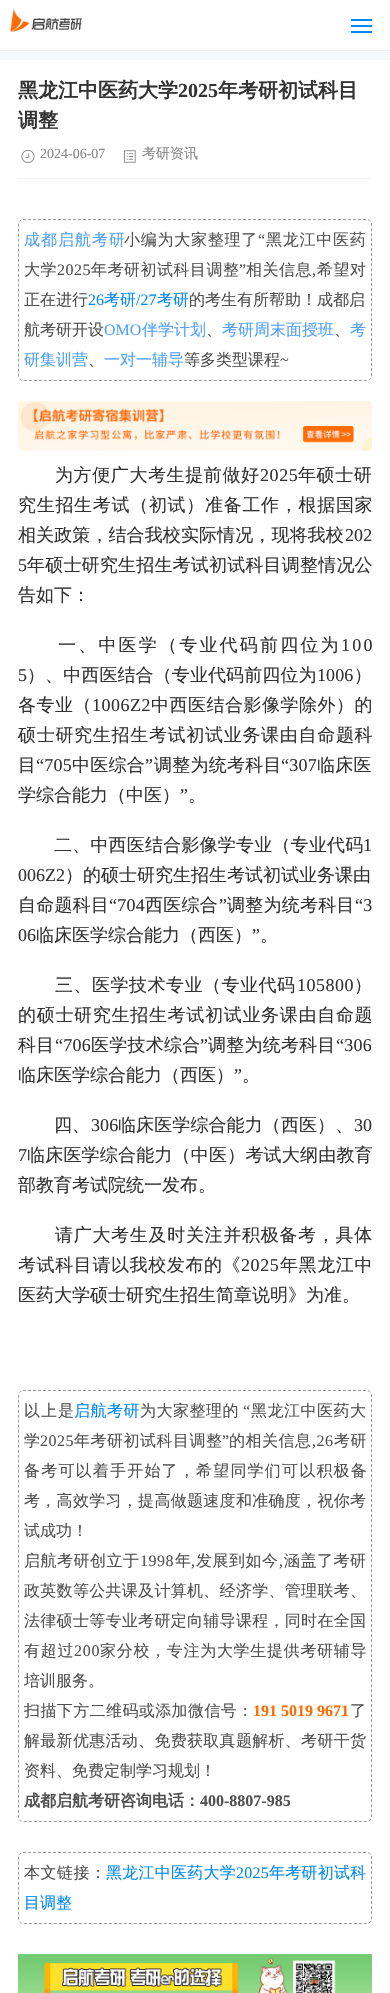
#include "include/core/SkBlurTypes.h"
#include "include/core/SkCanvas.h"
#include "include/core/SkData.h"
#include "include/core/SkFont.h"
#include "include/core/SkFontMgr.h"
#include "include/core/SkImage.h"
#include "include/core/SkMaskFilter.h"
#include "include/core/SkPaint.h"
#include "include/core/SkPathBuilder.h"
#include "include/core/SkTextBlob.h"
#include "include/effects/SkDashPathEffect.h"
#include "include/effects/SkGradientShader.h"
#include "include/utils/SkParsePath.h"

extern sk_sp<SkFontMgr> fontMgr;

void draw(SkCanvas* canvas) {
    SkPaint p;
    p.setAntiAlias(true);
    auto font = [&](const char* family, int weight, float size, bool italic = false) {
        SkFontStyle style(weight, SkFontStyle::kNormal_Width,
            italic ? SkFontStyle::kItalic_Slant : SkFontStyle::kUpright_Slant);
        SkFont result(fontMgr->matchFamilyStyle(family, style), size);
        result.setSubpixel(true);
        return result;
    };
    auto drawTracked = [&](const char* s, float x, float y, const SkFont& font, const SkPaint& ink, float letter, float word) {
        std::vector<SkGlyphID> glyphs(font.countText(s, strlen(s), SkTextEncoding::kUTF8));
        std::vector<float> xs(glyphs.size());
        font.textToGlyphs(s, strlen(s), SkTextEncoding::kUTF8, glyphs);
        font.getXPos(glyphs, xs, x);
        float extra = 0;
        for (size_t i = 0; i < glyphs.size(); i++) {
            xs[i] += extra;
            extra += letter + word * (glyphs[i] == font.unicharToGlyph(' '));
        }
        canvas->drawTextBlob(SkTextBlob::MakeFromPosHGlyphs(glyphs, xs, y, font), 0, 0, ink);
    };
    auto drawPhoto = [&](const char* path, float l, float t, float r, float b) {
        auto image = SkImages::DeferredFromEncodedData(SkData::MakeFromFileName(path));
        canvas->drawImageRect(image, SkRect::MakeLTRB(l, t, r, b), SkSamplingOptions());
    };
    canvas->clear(0xFFF6F8F9);
    p.setColor(0xFFFFFFFF);
    canvas->drawRect(SkRect::MakeLTRB(0, 0, 390, 50), p);
    p.setColor(0xFFEEEEEE);
    canvas->drawRect(SkRect::MakeLTRB(0, 50, 390, 51), p);
    drawPhoto("media/1.png", 10, 8, 82, 32);
    {
        const struct { float l, t, r, b; SkColor color; } items[] = {
            {351, 19, 372, 21, 0xFF0188FB},
            {351, 25, 372, 27, 0xFF0188FB},
            {351, 31, 372, 33, 0xFF0188FB},
            {0, 60, 390, 1993, 0xFFFFFFFF},
        };
        for (auto [l, t, r, b, color] : items) {
            p.setColor(color);
            canvas->drawRect(SkRect::MakeLTRB(l, t, r, b), p);
        }
    }
    auto font1 = font("WenQuanYi Zen Hei", 700, 20);
    p.setColor(0xFF333333);
    canvas->drawString("黑龙江中医药大学", 18, 97, font1, p);
    auto font2 = font("Liberation Serif", 700, 20);
    canvas->drawString("2025", 178, 97, font2, p);
    canvas->drawString("年考研初试科目", 218, 97, font1, p);
    canvas->drawString("调整", 18, 127, font1, p);
    drawPhoto("media/2.png", 21, 150, 35, 163);
    auto font3 = font("Liberation Serif", 400, 14);
    p.setColor(0xFF888888);
    canvas->drawString("2024-06-07", 40, 158, font3, p);
    drawPhoto("media/3.png", 124, 150, 136, 163);
    auto font4 = font("WenQuanYi Zen Hei", 500, 14);
    canvas->drawString("考研资讯", 142, 158, font4, p);
    p.setStyle(SkPaint::kStroke_Style);
    p.setStrokeWidth(1);
    p.setColor(0xFFE4E8EB);
    p.setPathEffect(SkDashPathEffect::Make({{1, 1}}, 0));
    canvas->drawPath(SkPathBuilder().moveTo(18, 178.5f).lineTo(372, 178.5f).detach(), p);
    p.setPathEffect(nullptr);
    p.setColor(0xFF999999);
    p.setPathEffect(SkDashPathEffect::Make({{3, 2}}, 0));
    canvas->drawPath(SkPathBuilder().moveTo(23, 219.5f).lineTo(367, 219.5f).cubicTo(369.5f, 219.5f, 371.5f, 221.5f, 371.5f, 224).lineTo(371.5f, 376).cubicTo(371.5f, 378.5f, 369.5f, 380.5f, 367, 380.5f).lineTo(23, 380.5f).cubicTo(20.5f, 380.5f, 18.5f, 378.5f, 18.5f, 376).lineTo(18.5f, 224).cubicTo(18.5f, 221.5f, 20.5f, 219.5f, 23, 219.5f).close().detach(), p);
    p.setPathEffect(nullptr);
    auto font5 = font("WenQuanYi Zen Hei", 500, 16);
    p.setStyle(SkPaint::kFill_Style);
    p.setColor(0xFF50A1FD);
    drawTracked("成都启航考研", 24, 245, font5, p, 1, 0);
    p.setColor(0xFF515151);
    drawTracked("小编为大家整理了", 124, 245, font5, p, 0.75f, 0);
    auto font6 = font("Liberation Serif", 400, 16);
    drawTracked("“", 258, 245, font6, p, 0.75f, 0);
    drawTracked("黑龙江中医药", 266, 245, font5, p, 0.75f, 0);
    drawTracked("大学", 24, 275, font5, p, 0.5f, 0);
    drawTracked("2025", 57, 275, font6, p, 0.5f, 0);
    drawTracked("年考研初试科目调整", 91, 275, font5, p, 0.5f, 0);
    drawTracked("”", 239, 275, font6, p, 0.5f, 0);
    drawTracked("相关信息", 246, 275, font5, p, 0.5f, 0);
    drawTracked("希望对", 317, 275, font5, p, 0.5f, 0);
    drawTracked(",", 312, 275, font6, p, 0.5f, 0);
    canvas->drawString("正在进行", 24, 305, font5, p);
    p.setColor(0xFF0188FB);
    canvas->drawString("26", 88, 305, font6, p);
    canvas->drawString("考研", 104, 305, font5, p);
    canvas->drawString("/27", 136, 305, font6, p);
    canvas->drawString("考研", 157, 305, font5, p);
    p.setColor(0xFF515151);
    canvas->drawString("的考生有所帮助！成都启", 189, 305, font5, p);
    canvas->drawString("航考研开设", 24, 335, font5, p);
    p.setColor(0xFF50A1FD);
    canvas->drawString("OMO", 104, 335, font6, p);
    canvas->drawString("伴学计划", 142, 335, font5, p);
    p.setColor(0xFF515151);
    canvas->drawString("、", 206, 335, font5, p);
    p.setColor(0xFF50A1FD);
    canvas->drawString("考研周末面授班", 222, 335, font5, p);
    p.setColor(0xFF515151);
    canvas->drawString("、", 334, 335, font5, p);
    p.setColor(0xFF50A1FD);
    {
        const struct { const char* s; float x, y; } items[] = {
            {"考", 350, 335},
            {"研集训营", 24, 365},
            {"一对一辅导", 104, 365},
        };
        for (auto [s, x, y] : items) {
            canvas->drawString(s, x, y, font5, p);
        }
    }
    p.setColor(0xFF515151);
    canvas->drawString("等多类型课程", 184, 365, font5, p);
    canvas->drawString("~", 280, 365, font6, p);
    canvas->drawString("、", 88, 365, font5, p);
    drawPhoto("media/4.png", 18, 401, 372, 451);
    auto font7 = font("WenQuanYi Zen Hei", 500, 18);
    p.setColor(0xFF333333);
    drawTracked("为方便广大考生提前做好", 55, 481, font7, p, 0.6f, 0);
    auto font8 = font("Liberation Serif", 400, 18);
    drawTracked("2025", 260, 481, font8, p, 0.6f, 0);
    drawTracked("年硕士研", 298, 481, font7, p, 0.6f, 0);
    drawTracked("究生招生考试（初试）准备工作，根据国家", 18, 511, font7, p, 0.7f, 0);
    drawTracked("相关政策，结合我校实际情况，现将我校", 18, 541, font7, p, 0.1f, 0);
    drawTracked("202", 345, 541, font8, p, 0.1f, 0);
    drawTracked("5", 18, 571, font8, p, 0.2f, 0);
    drawTracked("年硕士研究生招生考试初试科目调整情况公", 27, 571, font7, p, 0.2f, 0);
    canvas->drawString("告如下：", 18, 601, font7, p);
    drawTracked("一、中医学（专业代码前四位为", 58, 651, font7, p, 2.2f, 0);
    drawTracked("100", 341, 651, font8, p, 2.2f, 0);
    drawTracked("5", 18, 681, font8, p, 0.1f, 0);
    drawTracked("）、中西医结合（专业代码前四位为", 27, 681, font7, p, 0.1f, 0);
    drawTracked("1006", 317, 681, font8, p, 0.1f, 0);
    drawTracked("）", 354, 681, font7, p, 0.1f, 0);
    drawTracked("各专业（", 18, 711, font7, p, 0.5f, 0);
    drawTracked("1006Z2", 92, 711, font8, p, 0.5f, 0);
    drawTracked("中西医结合影像学除外）的", 151, 711, font7, p, 0.5f, 0);
    drawTracked("硕士研究生招生考试初试业务课由自命题科", 18, 741, font7, p, 0.7f, 0);
    drawTracked("目", 18, 771, font7, p, 0.25f, 0);
    drawTracked("“705", 36, 771, font8, p, 0.25f, 0);
    drawTracked("中医综合", 72, 771, font7, p, 0.25f, 0);
    drawTracked("”", 145, 771, font8, p, 0.25f, 0);
    drawTracked("调整为统考科目", 154, 771, font7, p, 0.25f, 0);
    drawTracked("“307", 281, 771, font8, p, 0.25f, 0);
    drawTracked("临床医", 317, 771, font7, p, 0.25f, 0);
    canvas->drawString("学综合能力（中医）", 18, 801, font7, p);
    canvas->drawString("”", 180, 801, font8, p);
    canvas->drawString("。", 188, 801, font7, p);
    drawTracked("二、中西医结合影像学专业（专业代码", 54, 851, font7, p, 0.2f, 0);
    drawTracked("1", 363, 851, font8, p, 0.2f, 0);
    canvas->drawString("006Z2", 18, 881, font8, p);
    canvas->drawString("）的硕士研究生招生考试初试业务课由", 65, 881, font7, p);
    drawTracked("自命题科目", 18, 911, font7, p, 0.25f, 0);
    drawTracked("“704", 109, 911, font8, p, 0.25f, 0);
    drawTracked("西医综合", 145, 911, font7, p, 0.25f, 0);
    drawTracked("”", 219, 911, font8, p, 0.25f, 0);
    drawTracked("调整为统考科目", 227, 911, font7, p, 0.25f, 0);
    drawTracked("“3", 355, 911, font8, p, 0.25f, 0);
    canvas->drawString("06", 18, 941, font8, p);
    canvas->drawString("临床医学综合能力（西医）", 36, 941, font7, p);
    canvas->drawString("”", 252, 941, font8, p);
    canvas->drawString("。", 260, 941, font7, p);
    drawTracked("三、医学技术专业（专业代码", 55, 991, font7, p, 0.5f, 0);
    drawTracked("105800", 297, 991, font8, p, 0.5f, 0);
    drawTracked("）", 354, 991, font7, p, 0.5f, 0);
    drawTracked("的硕士研究生招生考试初试业务课由自命题", 18, 1021, font7, p, 0.7f, 0);
    drawTracked("科目", 18, 1051, font7, p, 0.25f, 0);
    drawTracked("“706", 55, 1051, font8, p, 0.25f, 0);
    drawTracked("医学技术综合", 91, 1051, font7, p, 0.25f, 0);
    drawTracked("”", 200, 1051, font8, p, 0.25f, 0);
    drawTracked("调整为统考科目", 208, 1051, font7, p, 0.25f, 0);
    drawTracked("“306", 336, 1051, font8, p, 0.25f, 0);
    canvas->drawString("临床医学综合能力（西医）", 18, 1081, font7, p);
    canvas->drawString("”", 234, 1081, font8, p);
    canvas->drawString("。", 242, 1081, font7, p);
    drawTracked("四、", 54, 1131, font7, p, 0.1f, 0);
    drawTracked("306", 91, 1131, font8, p, 0.1f, 0);
    drawTracked("临床医学综合能力（西医）、", 118, 1131, font7, p, 0.1f, 0);
    drawTracked("30", 354, 1131, font8, p, 0.1f, 0);
    drawTracked("7", 18, 1161, font8, p, 0.2f, 0);
    drawTracked("临床医学综合能力（中医）考试大纲由教育", 27, 1161, font7, p, 0.2f, 0);
    canvas->drawString("部教育考试院统一发布。", 18, 1191, font7, p);
    drawTracked("请广大考生及时关注并积极备考，具体", 55, 1241, font7, p, 0.7f, 0);
    drawTracked("考试科目请以我校发布的《", 18, 1271, font7, p, 0.6f, 0);
    drawTracked("2025", 241, 1271, font8, p, 0.6f, 0);
    drawTracked("年黑龙江中", 280, 1271, font7, p, 0.6f, 0);
    canvas->drawString("医药大学硕士研究生招生简章说明》为准。", 18, 1301, font7, p);
    p.setStyle(SkPaint::kStroke_Style);
    p.setColor(0xFF999999);
    p.setPathEffect(SkDashPathEffect::Make({{3, 2}}, 0));
    canvas->drawPath(SkPathBuilder().moveTo(23, 1390.5f).lineTo(367, 1390.5f).cubicTo(369.5f, 1390.5f, 371.5f, 1392.5f, 371.5f, 1395).lineTo(371.5f, 1817).cubicTo(371.5f, 1819.5f, 369.5f, 1821.5f, 367, 1821.5f).lineTo(23, 1821.5f).cubicTo(20.5f, 1821.5f, 18.5f, 1819.5f, 18.5f, 1817).lineTo(18.5f, 1395).cubicTo(18.5f, 1392.5f, 20.5f, 1390.5f, 23, 1390.5f).close().detach(), p);
    p.setPathEffect(nullptr);
    p.setStyle(SkPaint::kFill_Style);
    p.setColor(0xFF515151);
    drawTracked("以上是", 24, 1416, font5, p, 1, 0);
    p.setColor(0xFF0188FB);
    drawTracked("启航考研", 74, 1416, font5, p, 0.5f, 0);
    p.setColor(0xFF515151);
    drawTracked("为大家整理的", 140, 1416, font5, p, 0.5f, 0);
    drawTracked("“", 243, 1416, font6, p, 0.5f, 0);
    drawTracked("黑龙江中医药大", 251, 1416, font5, p, 0.5f, 0);
    drawTracked("学", 24, 1446, font5, p, 0.5f, 0);
    drawTracked("2025", 40, 1446, font6, p, 0.5f, 0);
    drawTracked("年考研初试科目调整", 74, 1446, font5, p, 0.5f, 0);
    drawTracked("”", 222, 1446, font6, p, 0.5f, 0);
    drawTracked("的相关信息", 229, 1446, font5, p, 0.5f, 0);
    drawTracked(",26", 312, 1446, font6, p, 0.5f, 0);
    drawTracked("考研", 334, 1446, font5, p, 0.5f, 0);
    drawTracked("备考可以着手开始了，希望同学们可以积极备", 24, 1476, font5, p, 1.2f, 0);
    drawTracked("考，高效学习，提高做题速度和准确度，祝你考", 24, 1506, font5, p, 0.3f, 0);
    canvas->drawString("试成功！", 24, 1536, font5, p);
    drawTracked("启航考研创立于", 24, 1566, font5, p, 0.5f, 0);
    drawTracked("1998", 140, 1566, font6, p, 0.5f, 0);
    drawTracked("年", 175, 1566, font5, p, 0.5f, 0);
    drawTracked(",", 191, 1566, font6, p, 0.5f, 0);
    drawTracked("发展到如今", 196, 1566, font5, p, 0.5f, 0);
    drawTracked(",", 279, 1566, font6, p, 0.5f, 0);
    drawTracked("涵盖了考研", 284, 1566, font5, p, 0.5f, 0);
    drawTracked("政英数等公共课及计算机、经济学、管理联考、", 24, 1596, font5, p, 0.3f, 0);
    drawTracked("法律硕士等专业考研定向辅导课程，同时在全国", 24, 1626, font5, p, 0.3f, 0);
    drawTracked("有超过", 24, 1656, font5, p, 0.7f, 0);
    drawTracked("200", 74, 1656, font6, p, 0.7f, 0);
    drawTracked("家分校，专注为大学生提供考研辅导", 100, 1656, font5, p, 0.7f, 0);
    canvas->drawString("培训服务。", 24, 1686, font5, p);
    drawTracked("扫描下方二维码或添加微信号：", 24, 1716, font5, p, 0.4f, 0);
    auto font9 = font("Liberation Serif", 700, 16);
    p.setColor(0xFFFF6C02);
    canvas->drawString("191 5019 9671", 253, 1716, font9, p);
    p.setColor(0xFF515151);
    canvas->drawString("了", 350, 1716, font5, p);
    drawTracked("解最新优惠活动、免费获取真题解析、考研干货", 24, 1746, font5, p, 0.3f, 0);
    canvas->drawString("资料、免费定制学习规划！", 24, 1776, font5, p);
    auto font10 = font("WenQuanYi Zen Hei", 700, 16);
    canvas->drawString("成都启航考研咨询电话：", 24, 1806, font10, p);
    canvas->drawString("400-8807-985", 200, 1806, font9, p);
    p.setStyle(SkPaint::kStroke_Style);
    p.setColor(0xFF999999);
    p.setPathEffect(SkDashPathEffect::Make({{3, 2}}, 0));
    canvas->drawPath(SkPathBuilder().moveTo(23, 1852.5f).lineTo(367, 1852.5f).cubicTo(369.5f, 1852.5f, 371.5f, 1854.5f, 371.5f, 1857).lineTo(371.5f, 1919).cubicTo(371.5f, 1921.5f, 369.5f, 1923.5f, 367, 1923.5f).lineTo(23, 1923.5f).cubicTo(20.5f, 1923.5f, 18.5f, 1921.5f, 18.5f, 1919).lineTo(18.5f, 1857).cubicTo(18.5f, 1854.5f, 20.5f, 1852.5f, 23, 1852.5f).close().detach(), p);
    p.setPathEffect(nullptr);
    p.setStyle(SkPaint::kFill_Style);
    p.setColor(0xFF515151);
    drawTracked("本文链接：", 24, 1878, font5, p, 0.5f, 0);
    p.setColor(0xFF0188FB);
    drawTracked("黑龙江中医药大学", 106, 1878, font5, p, 0.25f, 0);
    drawTracked("2025", 236, 1878, font6, p, 0.25f, 0);
    drawTracked("年考研初试科", 269, 1878, font5, p, 0.25f, 0);
    canvas->drawString("目调整", 24, 1908, font5, p);
    drawPhoto("media/5.png", 18, 1954, 372, 1993);
}
